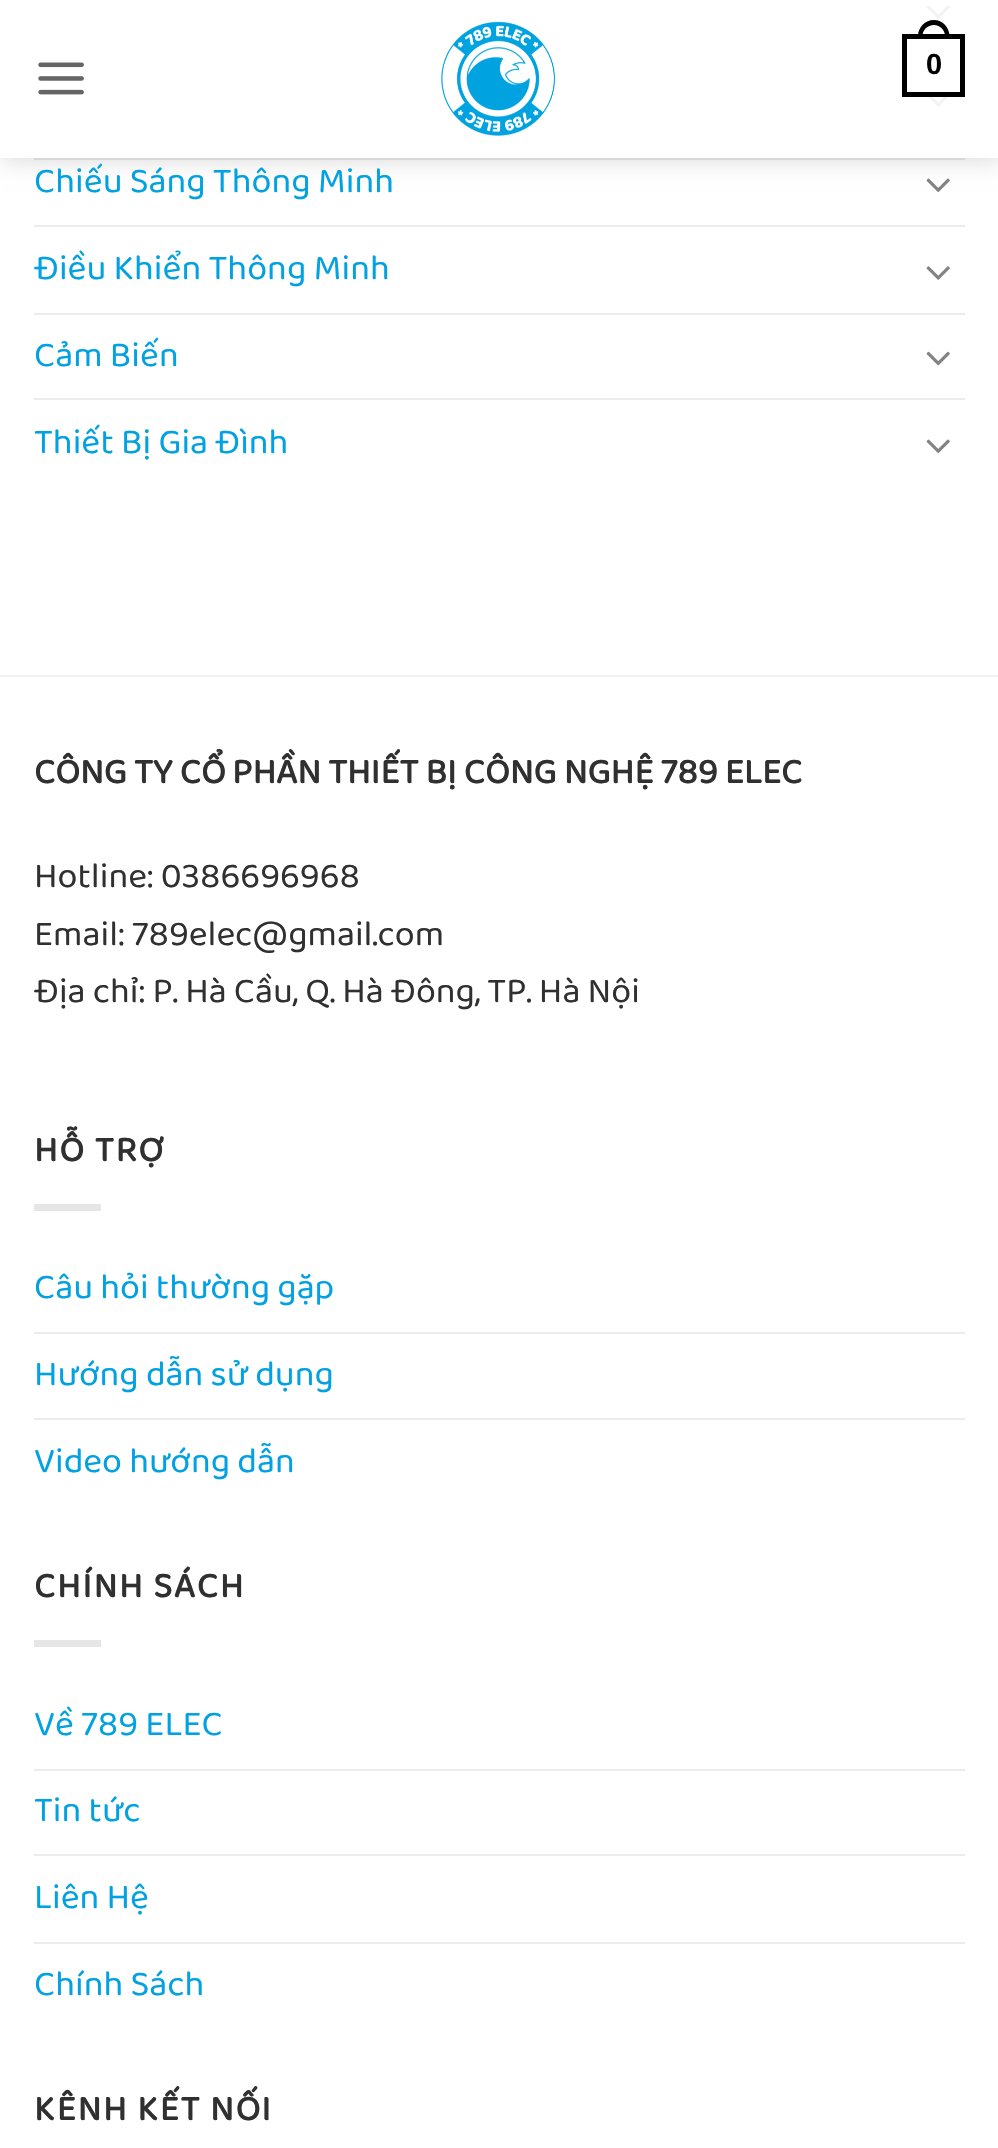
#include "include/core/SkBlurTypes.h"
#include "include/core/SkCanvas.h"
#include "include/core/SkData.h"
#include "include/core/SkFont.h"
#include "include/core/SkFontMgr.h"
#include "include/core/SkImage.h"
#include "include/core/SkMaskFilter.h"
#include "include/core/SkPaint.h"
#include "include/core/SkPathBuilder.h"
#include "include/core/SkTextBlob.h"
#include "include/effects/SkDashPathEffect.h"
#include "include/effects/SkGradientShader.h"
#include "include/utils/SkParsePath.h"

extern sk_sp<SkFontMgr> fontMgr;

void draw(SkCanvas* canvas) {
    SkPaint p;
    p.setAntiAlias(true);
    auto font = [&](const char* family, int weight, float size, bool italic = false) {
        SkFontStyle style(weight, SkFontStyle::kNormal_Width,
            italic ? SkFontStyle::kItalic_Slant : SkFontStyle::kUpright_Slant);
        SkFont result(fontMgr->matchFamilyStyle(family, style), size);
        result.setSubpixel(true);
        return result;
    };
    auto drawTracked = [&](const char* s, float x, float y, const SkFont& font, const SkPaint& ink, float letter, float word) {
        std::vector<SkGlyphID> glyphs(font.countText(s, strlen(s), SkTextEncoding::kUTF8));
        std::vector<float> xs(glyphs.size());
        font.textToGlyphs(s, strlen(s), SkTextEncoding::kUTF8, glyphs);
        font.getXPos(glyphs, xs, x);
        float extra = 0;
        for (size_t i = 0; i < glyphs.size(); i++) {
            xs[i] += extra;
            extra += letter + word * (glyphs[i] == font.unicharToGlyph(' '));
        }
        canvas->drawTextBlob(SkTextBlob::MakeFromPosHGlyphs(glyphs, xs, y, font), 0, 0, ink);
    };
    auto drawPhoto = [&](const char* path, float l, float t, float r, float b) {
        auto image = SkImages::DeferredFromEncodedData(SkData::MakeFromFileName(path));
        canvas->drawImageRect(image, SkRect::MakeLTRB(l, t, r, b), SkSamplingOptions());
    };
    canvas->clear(0xFFFFFFFF);
    drawPhoto("media/3.png", 926, 5, 950, 19);
    p.setColor(0xFFECECEC);
    canvas->drawRect(SkRect::MakeLTRB(34, 52, 965, 54), p);
    drawPhoto("media/4.png", 928, 97, 948, 107);
    canvas->drawRect(SkRect::MakeLTRB(34, 140, 965, 142), p);
    drawPhoto("media/5.png", 926, 178, 950, 192);
    canvas->save();
    canvas->clipPath(SkPathBuilder(SkPathFillType::kEvenOdd).moveTo(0, 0).lineTo(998, 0).lineTo(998, 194).lineTo(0, 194).close().moveTo(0, 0).lineTo(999, 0).lineTo(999, 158).lineTo(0, 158).close().detach(), true);
    p.setColor(0x26000000);
    p.setMaskFilter(SkMaskFilter::MakeBlur(kNormal_SkBlurStyle, 11));
    canvas->drawRect(SkRect::MakeLTRB(2, 2, 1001, 160), p);
    p.setMaskFilter(nullptr);
    canvas->restore();
    p.setColor(0xE6FFFFFF);
    canvas->drawRect(SkRect::MakeLTRB(0, 5, 998, 158), p);
    drawPhoto("media/1.png", 38, 62, 84, 95);
    drawPhoto("media/2.png", 441, 21, 556, 136);
    p.setStyle(SkPaint::kStroke_Style);
    p.setStrokeWidth(5);
    p.setColor(0xFF000000);
    canvas->drawRect(SkRect::MakeLTRB(904.5f, 36.5f, 962.5f, 94.5f), p);
    p.setStyle(SkPaint::kFill_Style);
    canvas->drawPath(SkPathBuilder(SkPathFillType::kEvenOdd).moveTo(934, 20).cubicTo(942.5f, 20, 949.5f, 27.5f, 949.5f, 36).lineTo(949.5f, 38).lineTo(918, 38).lineTo(918, 36).cubicTo(918, 27.5f, 925, 20, 934, 20).close().moveTo(934, 25).cubicTo(940, 25, 945, 30, 945, 36).lineTo(945, 38).lineTo(922.5f, 38).lineTo(922.5f, 36).cubicTo(922.5f, 30, 927.5f, 25, 934, 25).close().detach(), p);
    auto font1 = font("Liberation Sans", 700, 29);
    canvas->drawString("0", 926, 74, font1, p);
    p.setColor(0xFFD8D8D8);
    canvas->drawRect(SkRect::MakeLTRB(34, 158, 965, 160), p);
    auto font2 = font("Baloo 2", 400, 36);
    p.setColor(0xFF02A1E2);
    canvas->drawString("Chiếu Sáng Thông Minh", 34, 192, font2, p);
    p.setColor(0xFFECECEC);
    canvas->drawRect(SkRect::MakeLTRB(34, 225, 965, 227), p);
    p.setColor(0xFF02A1E2);
    canvas->drawString("Điều Khiển Thông Minh", 34, 279, font2, p);
    drawPhoto("media/3.png", 926, 266, 950, 280);
    p.setColor(0xFFECECEC);
    canvas->drawRect(SkRect::MakeLTRB(34, 313, 965, 315), p);
    p.setColor(0xFF02A1E2);
    canvas->drawString("Cảm Biến", 34, 366, font2, p);
    drawPhoto("media/6.png", 926, 351, 950, 366);
    p.setColor(0xFFECECEC);
    canvas->drawRect(SkRect::MakeLTRB(34, 398, 965, 400), p);
    p.setColor(0xFF02A1E2);
    canvas->drawString("Thiết Bị Gia Đình", 34, 453, font2, p);
    drawPhoto("media/5.png", 926, 439, 950, 453);
    p.setColor(0xFFF2F2F2);
    canvas->drawRect(SkRect::MakeLTRB(0, 675, 998, 677), p);
    auto font3 = font("Baloo 2", 700, 36);
    p.setColor(0xFF303030);
    canvas->drawString("CÔNG TY CỔ PHẦN THIẾT BỊ CÔNG NGHỆ 789 ELEC", 34, 783, font3, p);
    {
        const struct { const char* s; float x, y; } items[] = {
            {"Hotline: 0386696968", 34, 887},
            {"Email: 789elec@gmail.com", 34, 945},
            {"Địa chỉ: P. Hà Cầu, Q. Hà Đông, TP. Hà Nội", 34, 1002},
        };
        for (auto [s, x, y] : items) {
            canvas->drawString(s, x, y, font2, p);
        }
    }
    drawTracked("HỖ TRỢ", 34, 1161, font3, p, 1.75f, 0);
    p.setColor(0xFFE6E6E6);
    canvas->drawRect(SkRect::MakeLTRB(34, 1204, 101, 1211), p);
    p.setColor(0xFF02A1E2);
    canvas->drawString("Câu hỏi thường gặp", 34, 1298, font2, p);
    p.setColor(0xFFECECEC);
    canvas->drawRect(SkRect::MakeLTRB(34, 1332, 965, 1334), p);
    p.setColor(0xFF02A1E2);
    canvas->drawString("Hướng dẫn sử dụng", 34, 1385, font2, p);
    p.setColor(0xFFECECEC);
    canvas->drawRect(SkRect::MakeLTRB(34, 1418, 965, 1420), p);
    p.setColor(0xFF02A1E2);
    canvas->drawString("Video hướng dẫn", 34, 1472, font2, p);
    p.setColor(0xFF303030);
    drawTracked("CHÍNH SÁCH", 34, 1597, font3, p, 1.75f, 0);
    p.setColor(0xFFE6E6E6);
    canvas->drawRect(SkRect::MakeLTRB(34, 1640, 101, 1647), p);
    p.setColor(0xFF02A1E2);
    canvas->drawString("Về 789 ELEC", 34, 1735, font2, p);
    p.setColor(0xFFECECEC);
    canvas->drawRect(SkRect::MakeLTRB(34, 1769, 965, 1771), p);
    p.setColor(0xFF02A1E2);
    canvas->drawString("Tin tức", 34, 1821, font2, p);
    p.setColor(0xFFECECEC);
    canvas->drawRect(SkRect::MakeLTRB(34, 1854, 965, 1856), p);
    p.setColor(0xFF02A1E2);
    canvas->drawString("Liên Hệ", 34, 1908, font2, p);
    p.setColor(0xFFECECEC);
    canvas->drawRect(SkRect::MakeLTRB(34, 1942, 965, 1944), p);
    p.setColor(0xFF02A1E2);
    canvas->drawString("Chính Sách", 34, 1995, font2, p);
    p.setColor(0xFF303030);
    drawTracked("KÊNH KẾT NỐI", 34, 2120, font3, p, 1.75f, 0);
}
